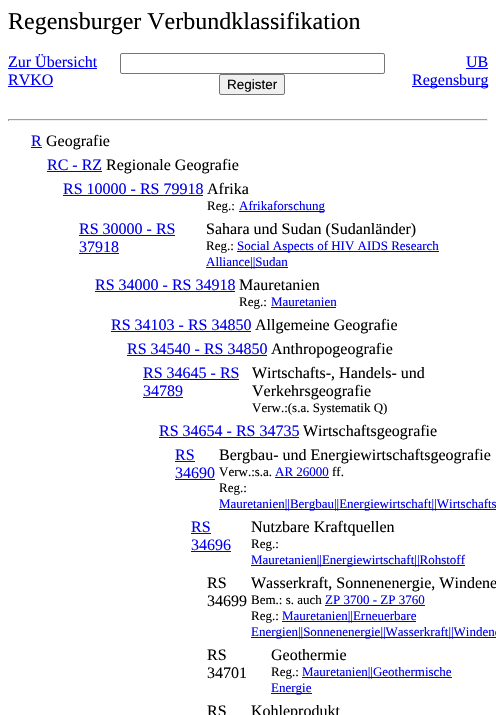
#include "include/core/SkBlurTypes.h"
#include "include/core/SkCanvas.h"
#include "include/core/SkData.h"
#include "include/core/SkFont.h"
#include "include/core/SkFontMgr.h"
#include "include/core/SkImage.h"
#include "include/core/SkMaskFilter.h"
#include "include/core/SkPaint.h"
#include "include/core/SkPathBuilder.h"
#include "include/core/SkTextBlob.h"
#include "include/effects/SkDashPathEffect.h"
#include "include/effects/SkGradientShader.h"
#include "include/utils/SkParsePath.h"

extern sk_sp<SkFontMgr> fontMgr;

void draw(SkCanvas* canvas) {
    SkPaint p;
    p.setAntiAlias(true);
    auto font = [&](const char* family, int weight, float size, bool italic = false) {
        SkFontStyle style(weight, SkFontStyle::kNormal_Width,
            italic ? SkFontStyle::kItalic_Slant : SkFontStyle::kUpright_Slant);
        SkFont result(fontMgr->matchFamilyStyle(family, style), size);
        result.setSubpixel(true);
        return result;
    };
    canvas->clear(0xFFFFFFFF);
    auto font1 = font("Liberation Serif", 400, 24);
    p.setColor(0xFF000000);
    canvas->drawString("Regensburger Verbundklassifikation", 8, 29, font1, p);
    auto font2 = font("Liberation Serif", 400, 16);
    p.setColor(0xFF0000EE);
    canvas->drawString("Zur Übersicht", 8, 67, font2, p);
    canvas->drawRect(SkRect::MakeLTRB(8, 68, 97, 69), p);
    canvas->drawString("RVKO", 8, 85, font2, p);
    canvas->drawRect(SkRect::MakeLTRB(8, 86, 53, 87), p);
    p.setStyle(SkPaint::kStroke_Style);
    p.setStrokeWidth(1);
    p.setColor(0xFF767676);
    canvas->drawRoundRect(SkRect::MakeLTRB(120.5f, 53.5f, 384.5f, 73.5f), 1.5f, 1.5f, p);
    p.setStyle(SkPaint::kFill_Style);
    p.setColor(0xFFEFEFEF);
    canvas->drawRoundRect(SkRect::MakeLTRB(219.5f, 74.5f, 284.5f, 94.5f), 1.5f, 1.5f, p);
    p.setStyle(SkPaint::kStroke_Style);
    p.setColor(0xFF767676);
    canvas->drawRoundRect(SkRect::MakeLTRB(219.5f, 74.5f, 284.5f, 94.5f), 1.5f, 1.5f, p);
    auto font3 = font("Liberation Sans", 400, 13.5f);
    p.setStyle(SkPaint::kFill_Style);
    p.setColor(0xFF000000);
    canvas->drawString("Register", 227, 89, font3, p);
    p.setColor(0xFF0000EE);
    canvas->drawString("UB", 466, 67, font2, p);
    canvas->drawRect(SkRect::MakeLTRB(466, 68, 488, 69), p);
    canvas->drawRect(SkRect::MakeLTRB(412, 86, 488, 87), p);
    canvas->drawString("Regensburg", 412, 85, font2, p);
    {
        const struct { float l, t, r, b; SkColor color; } items[] = {
            {8, 119, 488, 120, 0xFF9F9F9F},
            {487, 119, 488, 121, 0xFFEEEEEE},
            {8, 120, 488, 121, 0xFFEEEEEE},
            {8, 119, 9, 121, 0xFF9F9F9F},
        };
        for (auto [l, t, r, b, color] : items) {
            p.setColor(color);
            canvas->drawRect(SkRect::MakeLTRB(l, t, r, b), p);
        }
    }
    p.setColor(0xFF0000EE);
    canvas->drawString("R", 31, 146, font2, p);
    canvas->drawRect(SkRect::MakeLTRB(31, 147, 42, 148), p);
    p.setColor(0xFF000000);
    canvas->drawString("Geografie", 46, 146, font2, p);
    p.setColor(0xFF0000EE);
    canvas->drawString("RC - RZ", 47, 170, font2, p);
    canvas->drawRect(SkRect::MakeLTRB(47, 171, 102, 172), p);
    p.setColor(0xFF000000);
    canvas->drawString("Regionale Geografie", 106, 170, font2, p);
    p.setColor(0xFF0000EE);
    canvas->drawString("RS 10000 - RS 79918", 63, 194, font2, p);
    canvas->drawRect(SkRect::MakeLTRB(63, 195, 203, 196), p);
    p.setColor(0xFF000000);
    canvas->drawString("Afrika", 207, 194, font2, p);
    auto font4 = font("Liberation Serif", 400, 13);
    canvas->drawString("Reg.:", 207, 210, font4, p);
    p.setColor(0xFF0000EE);
    canvas->drawRect(SkRect::MakeLTRB(239, 211, 324, 212), p);
    canvas->drawString("Afrikaforschung", 239, 210, font4, p);
    canvas->drawString("RS 30000 - RS", 79, 234, font2, p);
    canvas->drawRect(SkRect::MakeLTRB(79, 235, 175, 236), p);
    canvas->drawString("37918", 79, 252, font2, p);
    canvas->drawRect(SkRect::MakeLTRB(79, 253, 119, 254), p);
    p.setColor(0xFF000000);
    canvas->drawString("Sahara und Sudan (Sudanländer)", 206, 234, font2, p);
    canvas->drawString("Reg.:", 206, 250, font4, p);
    p.setColor(0xFF0000EE);
    canvas->drawRect(SkRect::MakeLTRB(237, 251, 439, 252), p);
    canvas->drawString("Social Aspects of HIV AIDS Research", 237, 250, font4, p);
    canvas->drawRect(SkRect::MakeLTRB(206, 267, 288, 268), p);
    canvas->drawString("Alliance||Sudan", 206, 266, font4, p);
    canvas->drawString("RS 34000 - RS 34918", 95, 290, font2, p);
    canvas->drawRect(SkRect::MakeLTRB(95, 291, 235, 292), p);
    p.setColor(0xFF000000);
    canvas->drawString("Mauretanien", 239, 290, font2, p);
    canvas->drawString("Reg.:", 239, 306, font4, p);
    p.setColor(0xFF0000EE);
    canvas->drawString("Mauretanien", 271, 306, font4, p);
    canvas->drawRect(SkRect::MakeLTRB(271, 307, 336, 308), p);
    canvas->drawString("RS 34103 - RS 34850", 111, 330, font2, p);
    canvas->drawRect(SkRect::MakeLTRB(111, 331, 251, 332), p);
    p.setColor(0xFF000000);
    canvas->drawString("Allgemeine Geografie", 255, 330, font2, p);
    p.setColor(0xFF0000EE);
    canvas->drawString("RS 34540 - RS 34850", 127, 354, font2, p);
    canvas->drawRect(SkRect::MakeLTRB(127, 355, 267, 356), p);
    p.setColor(0xFF000000);
    canvas->drawString("Anthropogeografie", 271, 354, font2, p);
    p.setColor(0xFF0000EE);
    canvas->drawString("RS 34645 - RS", 143, 378, font2, p);
    canvas->drawRect(SkRect::MakeLTRB(143, 379, 239, 380), p);
    canvas->drawString("34789", 143, 396, font2, p);
    canvas->drawRect(SkRect::MakeLTRB(143, 397, 183, 398), p);
    p.setColor(0xFF000000);
    canvas->drawString("Wirtschafts-, Handels- und", 252, 378, font2, p);
    canvas->drawString("Verkehrsgeografie", 252, 396, font2, p);
    canvas->drawString("Verw.:(s.a. Systematik Q)", 252, 412, font4, p);
    p.setColor(0xFF0000EE);
    canvas->drawString("RS 34654 - RS 34735", 159, 436, font2, p);
    canvas->drawRect(SkRect::MakeLTRB(159, 437, 299, 438), p);
    p.setColor(0xFF000000);
    canvas->drawString("Wirtschaftsgeografie", 303, 436, font2, p);
    p.setColor(0xFF0000EE);
    canvas->drawString("RS", 175, 460, font2, p);
    canvas->drawRect(SkRect::MakeLTRB(175, 461, 195, 462), p);
    canvas->drawString("34690", 175, 478, font2, p);
    canvas->drawRect(SkRect::MakeLTRB(175, 479, 215, 480), p);
    p.setColor(0xFF000000);
    canvas->drawString("Bergbau- und Energiewirtschaftsgeografie", 219, 460, font2, p);
    canvas->drawString("Verw.:s.a.", 219, 476, font4, p);
    p.setColor(0xFF0000EE);
    canvas->drawString("AR 26000", 275, 476, font4, p);
    canvas->drawRect(SkRect::MakeLTRB(275, 477, 329, 478), p);
    p.setColor(0xFF000000);
    canvas->drawString("ff.", 332, 476, font4, p);
    canvas->drawString("Reg.:", 219, 492, font4, p);
    p.setColor(0xFF0000EE);
    canvas->drawRect(SkRect::MakeLTRB(219, 509, 496, 510), p);
    canvas->drawString("Mauretanien||Bergbau||Energiewirtschaft||Wirtschafts", 219, 508, font4, p);
    canvas->drawString("RS", 191, 532, font2, p);
    canvas->drawRect(SkRect::MakeLTRB(191, 533, 211, 534), p);
    canvas->drawString("34696", 191, 550, font2, p);
    canvas->drawRect(SkRect::MakeLTRB(191, 551, 231, 552), p);
    p.setColor(0xFF000000);
    canvas->drawString("Nutzbare Kraftquellen", 251, 532, font2, p);
    canvas->drawString("Reg.:", 251, 548, font4, p);
    p.setColor(0xFF0000EE);
    canvas->drawRect(SkRect::MakeLTRB(251, 565, 465, 566), p);
    canvas->drawString("Mauretanien||Energiewirtschaft||Rohstoff", 251, 564, font4, p);
    p.setColor(0xFF000000);
    {
        const struct { const char* s; float x, y; } items[] = {
            {"RS", 207, 588},
            {"34699", 207, 606},
            {"Wasserkraft, Sonnenenergie, Windene", 251, 588},
        };
        for (auto [s, x, y] : items) {
            canvas->drawString(s, x, y, font2, p);
        }
    }
    canvas->drawString("Bem.: s. auch", 251, 604, font4, p);
    p.setColor(0xFF0000EE);
    canvas->drawString("ZP 3700 - ZP 3760", 325, 604, font4, p);
    canvas->drawRect(SkRect::MakeLTRB(325, 605, 425, 606), p);
    p.setColor(0xFF000000);
    canvas->drawString("Reg.:", 251, 620, font4, p);
    p.setColor(0xFF0000EE);
    canvas->drawRect(SkRect::MakeLTRB(282, 621, 416, 622), p);
    canvas->drawString("Mauretanien||Erneuerbare", 282, 620, font4, p);
    canvas->drawRect(SkRect::MakeLTRB(251, 637, 496, 638), p);
    canvas->drawString("Energien||Sonnenenergie||Wasserkraft||Windene", 251, 636, font4, p);
    p.setColor(0xFF000000);
    {
        const struct { const char* s; float x, y; } items[] = {
            {"RS", 207, 660},
            {"34701", 207, 678},
            {"Geothermie", 271, 660},
        };
        for (auto [s, x, y] : items) {
            canvas->drawString(s, x, y, font2, p);
        }
    }
    canvas->drawString("Reg.:", 271, 676, font4, p);
    p.setColor(0xFF0000EE);
    canvas->drawRect(SkRect::MakeLTRB(302, 677, 452, 678), p);
    canvas->drawString("Mauretanien||Geothermische", 302, 676, font4, p);
    canvas->drawRect(SkRect::MakeLTRB(271, 693, 312, 694), p);
    canvas->drawString("Energie", 271, 692, font4, p);
    p.setColor(0xFF000000);
    canvas->drawString("RS", 207, 716, font2, p);
    canvas->drawString("Kohleprodukt", 251, 716, font2, p);
}
